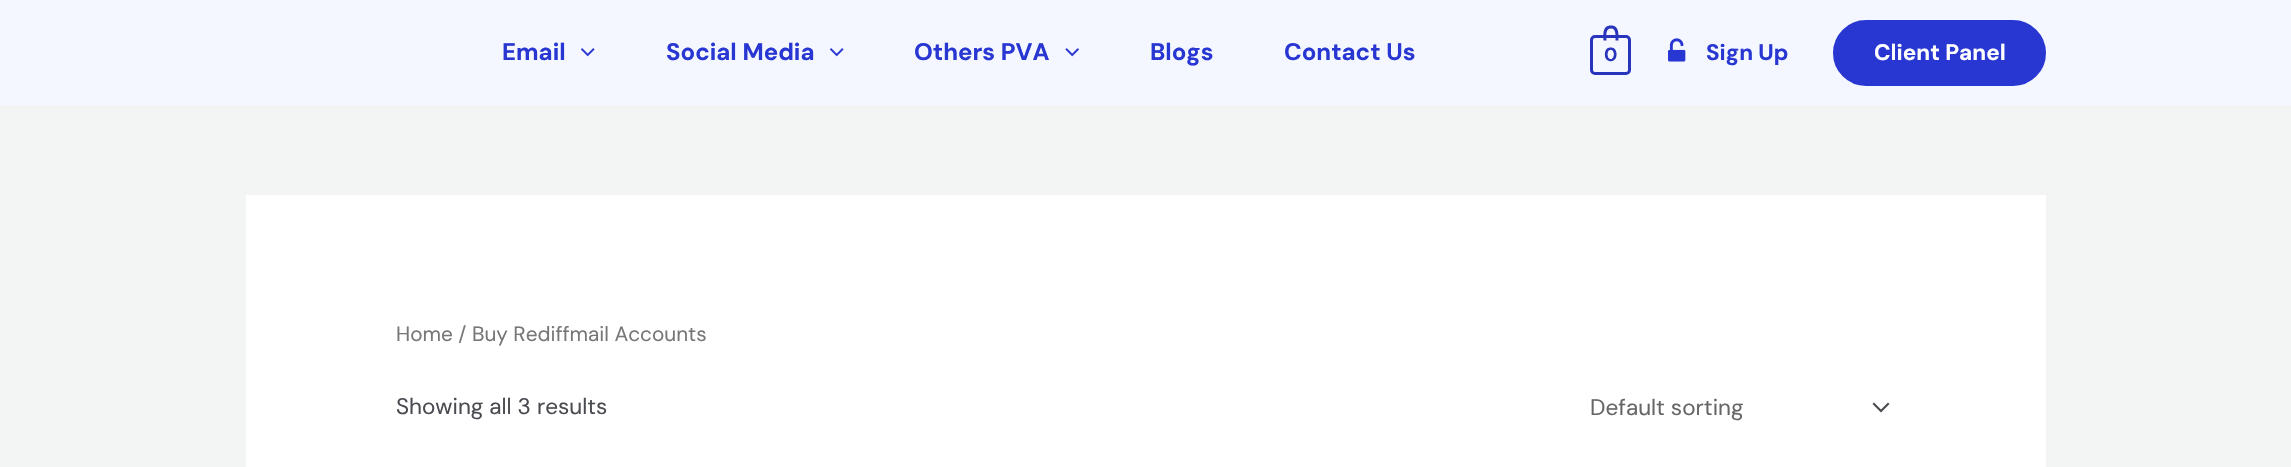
#include "include/core/SkBlurTypes.h"
#include "include/core/SkCanvas.h"
#include "include/core/SkData.h"
#include "include/core/SkFont.h"
#include "include/core/SkFontMgr.h"
#include "include/core/SkImage.h"
#include "include/core/SkMaskFilter.h"
#include "include/core/SkPaint.h"
#include "include/core/SkPathBuilder.h"
#include "include/core/SkTextBlob.h"
#include "include/effects/SkDashPathEffect.h"
#include "include/effects/SkGradientShader.h"
#include "include/utils/SkParsePath.h"

extern sk_sp<SkFontMgr> fontMgr;

void draw(SkCanvas* canvas) {
    SkPaint p;
    p.setAntiAlias(true);
    auto font = [&](const char* family, int weight, float size, bool italic = false) {
        SkFontStyle style(weight, SkFontStyle::kNormal_Width,
            italic ? SkFontStyle::kItalic_Slant : SkFontStyle::kUpright_Slant);
        SkFont result(fontMgr->matchFamilyStyle(family, style), size);
        result.setSubpixel(true);
        return result;
    };
    auto drawPhoto = [&](const char* path, float l, float t, float r, float b) {
        auto image = SkImages::DeferredFromEncodedData(SkData::MakeFromFileName(path));
        canvas->drawImageRect(image, SkRect::MakeLTRB(l, t, r, b), SkSamplingOptions());
    };
    canvas->clear(0xFFF3F5F5);
    p.setColor(0xFFF4F7FF);
    canvas->drawRect(SkRect::MakeLTRB(0, 0, 2291, 105), p);
    auto font1 = font("DM Sans", 700, 24);
    p.setColor(0xFF2836D2);
    canvas->drawString("Email", 502, 60, font1, p);
    drawPhoto("media/1.png", 581, 48, 595, 57);
    canvas->drawString("Social Media", 666, 60, font1, p);
    drawPhoto("media/1.png", 830, 48, 844, 57);
    canvas->drawString("Others PVA", 914, 60, font1, p);
    drawPhoto("media/2.png", 1065, 48, 1079, 57);
    canvas->drawString("Blogs", 1150, 60, font1, p);
    canvas->drawString("Contact Us", 1284, 60, font1, p);
    p.setStyle(SkPaint::kStroke_Style);
    p.setStrokeWidth(3);
    p.setColor(0xFF2834BC);
    canvas->drawRoundRect(SkRect::MakeLTRB(1591.5f, 36.5f, 1629.5f, 73.5f), 3.5f, 3.5f, p);
    p.setStyle(SkPaint::kFill_Style);
    canvas->drawPath(SkPathBuilder(SkPathFillType::kEvenOdd).moveTo(1611, 25.5f).cubicTo(1619.5f, 25.5f, 1618.5f, 34.5f, 1618.5f, 40.5f).lineTo(1603.5f, 40.5f).cubicTo(1603.5f, 34.5f, 1602, 25.5f, 1611, 25.5f).close().moveTo(1611, 28.5f).cubicTo(1616.5f, 28.5f, 1615.5f, 36.5f, 1615.5f, 40.5f).lineTo(1606.5f, 40.5f).cubicTo(1606.5f, 36.5f, 1605, 28.5f, 1611, 28.5f).close().detach(), p);
    auto font2 = font("DM Sans", 700, 19);
    canvas->drawString("0", 1604, 61, font2, p);
    drawPhoto("media/3.png", 1668, 38, 1686, 62);
    auto font3 = font("DM Sans", 700, 22.5f);
    p.setColor(0xFF2836D2);
    canvas->drawString("Sign Up", 1706, 60, font3, p);
    canvas->drawRoundRect(SkRect::MakeLTRB(1834.5f, 21.5f, 2044.5f, 84.5f), 31.5f, 31.5f, p);
    p.setStyle(SkPaint::kStroke_Style);
    canvas->drawRoundRect(SkRect::MakeLTRB(1834.5f, 21.5f, 2044.5f, 84.5f), 31.5f, 31.5f, p);
    p.setStyle(SkPaint::kFill_Style);
    p.setColor(0xFFFFFFFF);
    canvas->drawString("Client Panel", 1874, 60, font3, p);
    canvas->drawRect(SkRect::MakeLTRB(246, 195, 2046, 467), p);
    auto font4 = font("DM Sans", 400, 20.75f);
    p.setColor(0xFF777777);
    canvas->drawString("Home / Buy Rediffmail Accounts", 396, 341, font4, p);
    auto font5 = font("DM Sans", 400, 22.5f);
    p.setColor(0xFF494B51);
    canvas->drawString("Showing all 3 results", 396, 414, font5, p);
    canvas->drawPath(SkPathBuilder().moveTo(1872.5f, 404).lineTo(1881, 412.5f).lineTo(1889.5f, 404).lineTo(1888, 402.5f).lineTo(1881, 409.5f).lineTo(1874, 402.5f).close().detach(), p);
    p.setColor(0xFF666666);
    canvas->drawString("Default sorting", 1590, 415, font5, p);
}
